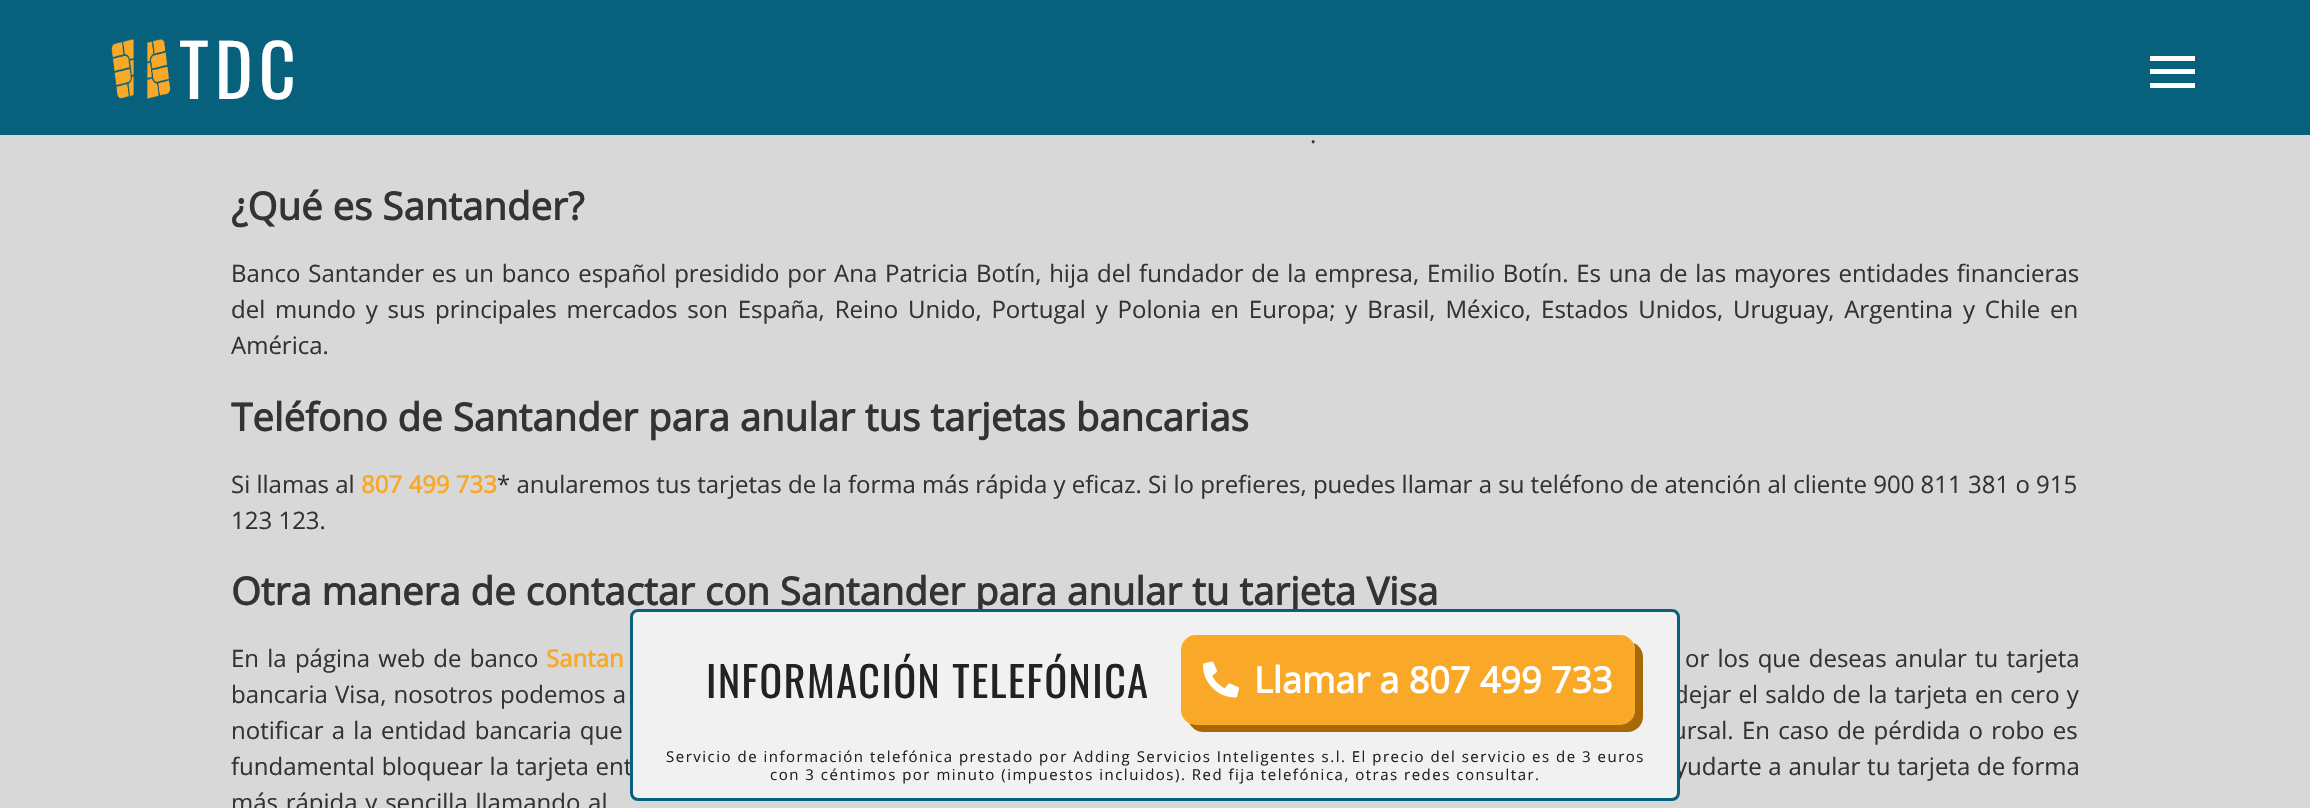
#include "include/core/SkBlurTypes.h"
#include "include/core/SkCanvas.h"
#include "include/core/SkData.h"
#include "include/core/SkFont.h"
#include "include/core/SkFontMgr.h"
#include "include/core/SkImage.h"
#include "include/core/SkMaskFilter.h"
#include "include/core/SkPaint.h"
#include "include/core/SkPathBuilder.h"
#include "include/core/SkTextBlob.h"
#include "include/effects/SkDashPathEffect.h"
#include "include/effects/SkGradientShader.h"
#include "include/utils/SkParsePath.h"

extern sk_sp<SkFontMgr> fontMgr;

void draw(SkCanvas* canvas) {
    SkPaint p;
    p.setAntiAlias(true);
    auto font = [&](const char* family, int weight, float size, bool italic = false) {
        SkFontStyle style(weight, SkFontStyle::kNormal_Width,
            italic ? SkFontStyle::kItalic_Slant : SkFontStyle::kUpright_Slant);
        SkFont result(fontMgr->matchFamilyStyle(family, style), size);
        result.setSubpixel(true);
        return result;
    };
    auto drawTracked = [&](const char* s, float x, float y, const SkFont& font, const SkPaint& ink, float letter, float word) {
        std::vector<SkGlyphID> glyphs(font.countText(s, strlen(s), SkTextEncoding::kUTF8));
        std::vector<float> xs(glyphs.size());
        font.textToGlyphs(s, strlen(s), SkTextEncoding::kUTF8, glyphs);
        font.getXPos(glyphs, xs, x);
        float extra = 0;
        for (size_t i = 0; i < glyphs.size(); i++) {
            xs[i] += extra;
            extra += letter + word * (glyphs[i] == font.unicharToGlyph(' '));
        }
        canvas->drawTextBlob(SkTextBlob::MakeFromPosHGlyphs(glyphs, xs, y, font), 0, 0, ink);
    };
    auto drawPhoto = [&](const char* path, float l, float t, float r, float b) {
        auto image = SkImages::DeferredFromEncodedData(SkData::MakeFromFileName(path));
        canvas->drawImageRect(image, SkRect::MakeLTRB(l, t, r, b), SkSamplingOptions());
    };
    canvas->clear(0xFFD8D8D8);
    p.setColor(0xFF07617D);
    canvas->drawRect(SkRect::MakeLTRB(0, 0, 2310, 135), p);
    drawPhoto("media/1.png", 111, 39, 171, 99);
    auto font1 = font("Oswald", 400, 72);
    p.setColor(0xFFFFFFFF);
    drawTracked("TDC", 179, 99, font1, p, 6, 0);
    {
        const struct { float l, t, r, b; SkColor color; } items[] = {
            {2150, 69, 2195, 74, 0xFFFFFFFF},
            {2150, 56, 2195, 61, 0xFFFFFFFF},
            {2150, 83, 2195, 88, 0xFFFFFFFF},
        };
        for (auto [l, t, r, b, color] : items) {
            p.setColor(color);
            canvas->drawRect(SkRect::MakeLTRB(l, t, r, b), p);
        }
    }
    auto font2 = font("Open Sans", 400, 24);
    p.setColor(0xFF333333);
    canvas->drawString(".", 1310, 143, font2, p);
    auto font3 = font("Open Sans", 700, 38.4f);
    canvas->drawString("¿Qué es Santander?", 231, 220, font3, p);
    drawTracked("Banco Santander es un banco español presidido por Ana Patricia Botín, hija del fundador de la empresa, Emilio Botín. Es una de las mayores entidades financieras", 231, 282, font2, p, 0, 1.55f);
    drawTracked("del mundo y sus principales mercados son España, Reino Unido, Portugal y Polonia en Europa; y Brasil, México, Estados Unidos, Uruguay, Argentina y Chile en", 231, 318, font2, p, 0, 3.6f);
    canvas->drawString("América.", 231, 354, font2, p);
    canvas->drawString("Teléfono de Santander para anular tus tarjetas bancarias", 231, 431, font3, p);
    canvas->drawString("Si llamas al", 231, 493, font2, p);
    auto font4 = font("Open Sans", 700, 24);
    p.setColor(0xFFF9A828);
    canvas->drawString("807 499 733", 361, 493, font4, p);
    p.setColor(0xFF333333);
    canvas->drawString("* anularemos tus tarjetas de la forma más rápida y eficaz. Si lo prefieres, puedes llamar a su teléfono de atención al cliente 900 811 381 o 915", 497, 493, font2, p);
    canvas->drawString("123 123.", 231, 529, font2, p);
    canvas->drawString("Otra manera de contactar con Santander para anular tu tarjeta Visa", 231, 605, font3, p);
    drawTracked("En la página web de banco", 231, 667, font2, p, 0, 2);
    p.setColor(0xFFF9A828);
    canvas->drawString("Santan", 546, 667, font4, p);
    p.setColor(0xFF333333);
    drawTracked("or los que deseas anular tu tarjeta", 1685, 667, font2, p, 0, 2);
    drawTracked("bancaria Visa, nosotros podemos a", 231, 703, font2, p, 0, 1);
    drawTracked("dejar el saldo de la tarjeta en cero y", 1674, 703, font2, p, 0, 1);
    drawTracked("notificar a la entidad bancaria que", 231, 739, font2, p, 0, 2);
    drawTracked("ursal. En caso de pérdida o robo es", 1672, 739, font2, p, 0, 2);
    drawTracked("fundamental bloquear la tarjeta ent", 231, 775, font2, p, 0, 0.5f);
    drawTracked("yudarte a anular tu tarjeta de forma", 1675, 775, font2, p, 0, 0.5f);
    drawTracked("más rápida y sencilla llamando al", 231, 811, font2, p, 0, 1.5f);
    p.setColor(0xFFF1F1F1);
    canvas->drawRoundRect(SkRect::MakeLTRB(631.5f, 610.5f, 1678.5f, 799.5f), 6.5f, 6.5f, p);
    p.setStyle(SkPaint::kStroke_Style);
    p.setStrokeWidth(3);
    p.setColor(0xFF07617D);
    canvas->drawRoundRect(SkRect::MakeLTRB(631.5f, 610.5f, 1678.5f, 799.5f), 6.5f, 6.5f, p);
    auto font5 = font("Oswald", 400, 42);
    p.setStyle(SkPaint::kFill_Style);
    p.setColor(0xFF222222);
    drawTracked("INFORMACIÓN TELEFÓNICA", 706, 698, font5, p, 1.5f, 0);
    p.setColor(0xFFA76805);
    canvas->drawPath(SkPathBuilder().moveTo(1189, 723).cubicTo(1192, 728, 1197, 732, 1203, 732).lineTo(1628, 732).cubicTo(1636, 732, 1643, 725, 1643, 717).lineTo(1643, 657).cubicTo(1643, 651, 1639, 645, 1634, 643).cubicTo(1634, 645, 1635, 647, 1635, 650).lineTo(1635, 710).cubicTo(1635, 718, 1628, 724, 1620, 724).lineTo(1196, 724).cubicTo(1193, 724, 1191, 724, 1189, 723).close().detach(), p);
    p.setColor(0xFFF9A828);
    canvas->drawRoundRect(SkRect::MakeLTRB(1181, 635, 1635, 725), 15, 15, p);
    drawPhoto("media/2.png", 1203, 661, 1239, 698);
    auto font6 = font("Open Sans", 700, 36);
    p.setColor(0xFFFFFFFF);
    canvas->drawString("Llamar a 807 499 733", 1254, 693, font6, p);
    auto font7 = font("Open Sans", 400, 15);
    p.setColor(0xFF222222);
    drawTracked("Servicio de información telefónica prestado por Adding Servicios Inteligentes s.l. El precio del servicio es de 3 euros", 666, 762, font7, p, 1.5f, 0);
    drawTracked("con 3 céntimos por minuto (impuestos incluidos). Red fija telefónica, otras redes consultar.", 770, 780, font7, p, 1.5f, 0);
}
